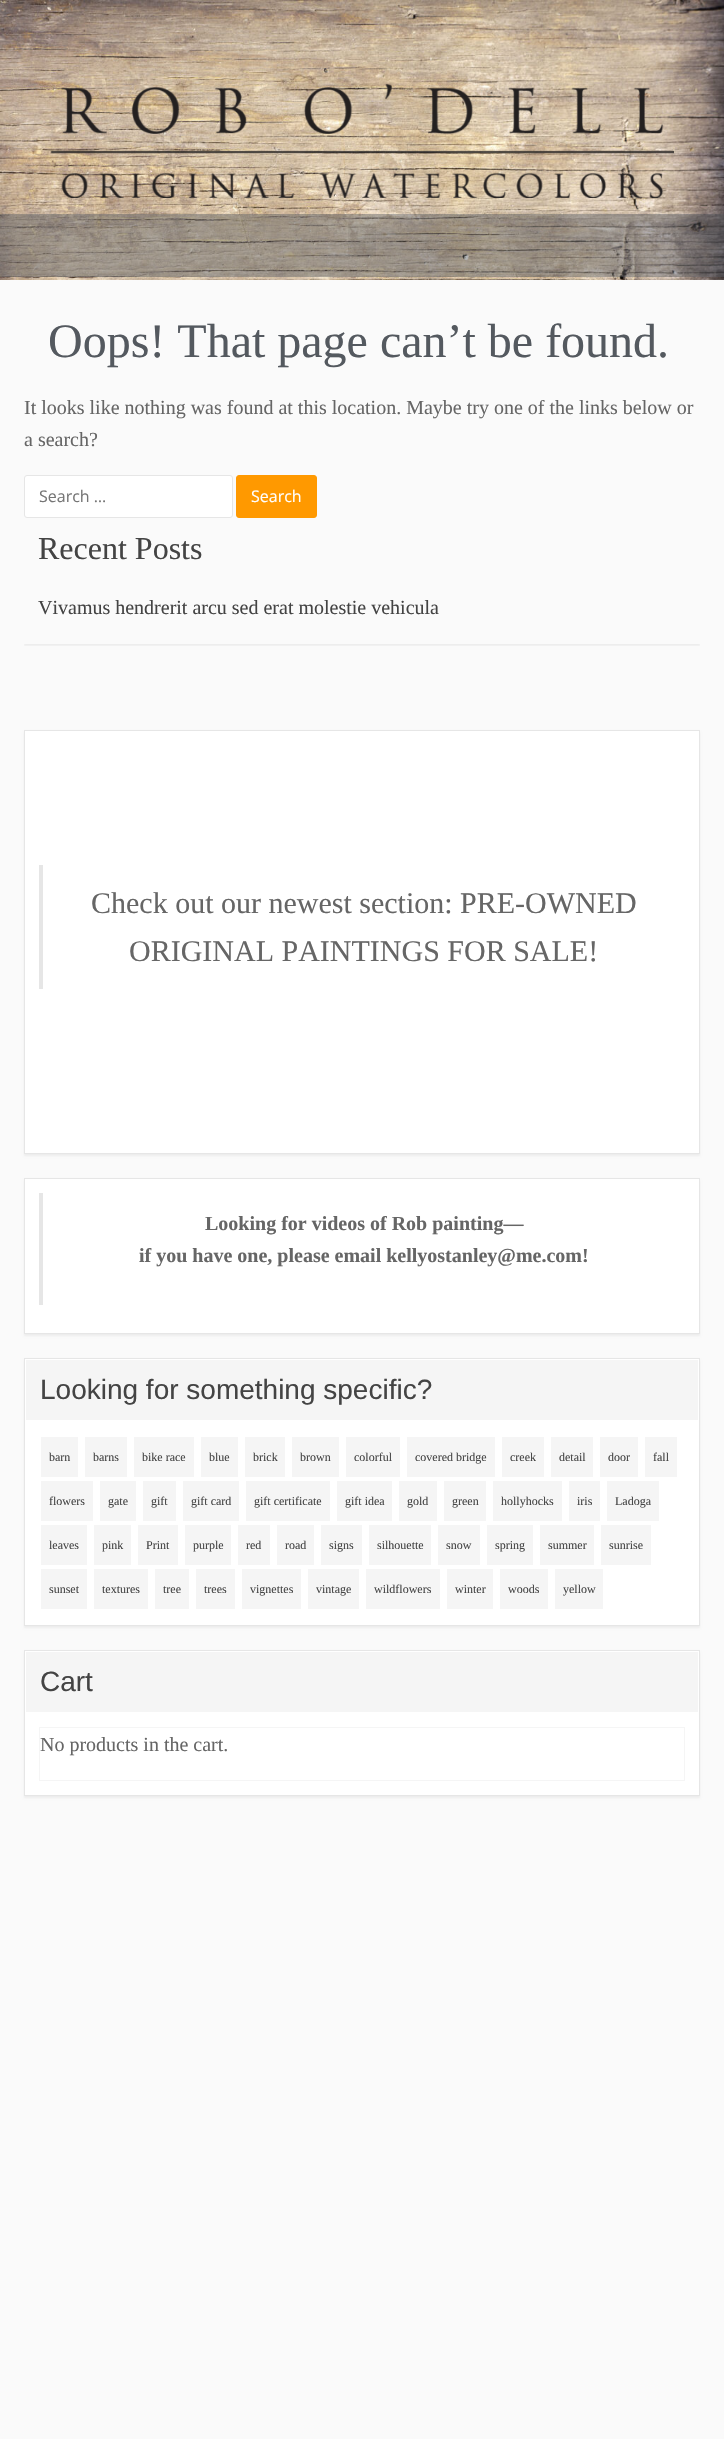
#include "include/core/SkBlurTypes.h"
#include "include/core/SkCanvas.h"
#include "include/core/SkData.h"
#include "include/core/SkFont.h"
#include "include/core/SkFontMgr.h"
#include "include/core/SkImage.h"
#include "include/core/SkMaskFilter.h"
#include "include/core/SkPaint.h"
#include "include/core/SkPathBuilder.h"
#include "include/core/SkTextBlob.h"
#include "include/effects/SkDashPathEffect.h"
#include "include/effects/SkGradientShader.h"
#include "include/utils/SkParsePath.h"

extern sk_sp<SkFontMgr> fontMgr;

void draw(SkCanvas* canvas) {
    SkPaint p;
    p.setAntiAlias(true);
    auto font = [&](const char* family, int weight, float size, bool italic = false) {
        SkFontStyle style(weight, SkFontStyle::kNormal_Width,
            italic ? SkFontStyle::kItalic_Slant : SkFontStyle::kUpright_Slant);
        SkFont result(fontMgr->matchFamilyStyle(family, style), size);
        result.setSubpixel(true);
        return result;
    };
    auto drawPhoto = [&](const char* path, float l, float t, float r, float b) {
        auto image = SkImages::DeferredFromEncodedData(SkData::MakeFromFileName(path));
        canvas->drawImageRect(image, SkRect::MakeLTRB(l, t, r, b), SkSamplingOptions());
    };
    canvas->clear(0xFFFAFAFA);
    drawPhoto("media/1.png", 0, 0, 724, 280);
    drawPhoto("media/2.png", 50, 83, 674, 198);
    p.setColor(0x6E54595F);
    canvas->drawRect(SkRect::MakeLTRB(0, 214, 724, 277), p);
    p.setColor(0x0D000000);
    canvas->drawRect(SkRect::MakeLTRB(348, 224, 376, 257), p);
    auto font1 = font("Liberation Serif", 400, 48);
    p.setColor(0xFF54595F);
    canvas->drawString("Oops! That page can’t be found.", 48, 357, font1, p);
    auto font2 = font("Liberation Serif", 400, 20);
    p.setColor(0xFF666666);
    canvas->drawString("It looks like nothing was found at this location. Maybe try one of the links below or", 24, 414, font2, p);
    canvas->drawString("a search?", 24, 446, font2, p);
    p.setColor(0xFFFFFFFF);
    canvas->drawRoundRect(SkRect::MakeLTRB(24.5f, 475.5f, 232.5f, 517.5f), 2.5f, 2.5f, p);
    p.setStyle(SkPaint::kStroke_Style);
    p.setStrokeWidth(1);
    p.setColor(0xFFE6E6E6);
    canvas->drawRoundRect(SkRect::MakeLTRB(24.5f, 475.5f, 232.5f, 517.5f), 2.5f, 2.5f, p);
    auto font3 = font("Open Sans", 400, 16);
    p.setStyle(SkPaint::kFill_Style);
    p.setColor(0xFF757575);
    canvas->drawString("Search …", 39, 502, font3, p);
    p.setColor(0xFFFF9900);
    canvas->drawRoundRect(SkRect::MakeLTRB(236.5f, 475.5f, 316.5f, 517.5f), 2.5f, 2.5f, p);
    p.setStyle(SkPaint::kStroke_Style);
    canvas->drawRoundRect(SkRect::MakeLTRB(236.5f, 475.5f, 316.5f, 517.5f), 2.5f, 2.5f, p);
    p.setStyle(SkPaint::kFill_Style);
    p.setColor(0xFFFFFFFF);
    canvas->drawString("Search", 251, 502, font3, p);
    canvas->save();
    canvas->clipRect(SkRect::MakeLTRB(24, 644, 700, 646));
    p.setColor(0x0D000000);
    p.setMaskFilter(SkMaskFilter::MakeBlur(kNormal_SkBlurStyle, 1));
    canvas->drawRect(SkRect::MakeLTRB(24, 520, 700, 646), p);
    p.setMaskFilter(nullptr);
    canvas->restore();
    auto font4 = font("Liberation Serif", 400, 32);
    p.setColor(0xFF444444);
    canvas->drawString("Recent Posts", 38, 559, font4, p);
    canvas->drawString("Vivamus hendrerit arcu sed erat molestie vehicula", 38, 614, font2, p);
    p.setColor(0x0D000000);
    p.setMaskFilter(SkMaskFilter::MakeBlur(kNormal_SkBlurStyle, 1));
    canvas->drawRect(SkRect::MakeLTRB(24, 732, 700, 1156), p);
    p.setMaskFilter(nullptr);
    p.setColor(0xFFFFFFFF);
    canvas->drawRect(SkRect::MakeLTRB(24.5f, 730.5f, 699.5f, 1153.5f), p);
    p.setStyle(SkPaint::kStroke_Style);
    p.setColor(0xFFE6E6E6);
    canvas->drawRect(SkRect::MakeLTRB(24.5f, 730.5f, 699.5f, 1153.5f), p);
    p.setStyle(SkPaint::kFill_Style);
    canvas->drawRect(SkRect::MakeLTRB(39, 865, 43, 989), p);
    auto font5 = font("Liberation Serif", 400, 30);
    p.setColor(0xFF666666);
    canvas->drawString("Check out our newest section: PRE-OWNED", 91, 913, font5, p);
    canvas->drawString("ORIGINAL PAINTINGS FOR SALE!", 129, 961, font5, p);
    p.setColor(0x0D000000);
    p.setMaskFilter(SkMaskFilter::MakeBlur(kNormal_SkBlurStyle, 1));
    canvas->drawRect(SkRect::MakeLTRB(24, 1180, 700, 1336), p);
    p.setMaskFilter(nullptr);
    p.setColor(0xFFFFFFFF);
    canvas->drawRect(SkRect::MakeLTRB(24.5f, 1178.5f, 699.5f, 1333.5f), p);
    p.setStyle(SkPaint::kStroke_Style);
    p.setColor(0xFFE6E6E6);
    canvas->drawRect(SkRect::MakeLTRB(24.5f, 1178.5f, 699.5f, 1333.5f), p);
    p.setStyle(SkPaint::kFill_Style);
    canvas->drawRect(SkRect::MakeLTRB(39, 1193, 43, 1305), p);
    auto font6 = font("Liberation Serif", 700, 20);
    p.setColor(0xFF666666);
    canvas->drawString("Looking for videos of Rob painting—", 205, 1230, font6, p);
    canvas->drawString("if you have one, please email kellyostanley@me.com!", 139, 1262, font6, p);
    p.setColor(0x0D000000);
    p.setMaskFilter(SkMaskFilter::MakeBlur(kNormal_SkBlurStyle, 1));
    canvas->drawRect(SkRect::MakeLTRB(24, 1360, 700, 1628), p);
    p.setMaskFilter(nullptr);
    p.setColor(0xFFFFFFFF);
    canvas->drawRect(SkRect::MakeLTRB(25, 1421, 699, 1625), p);
    p.setStyle(SkPaint::kStroke_Style);
    p.setColor(0xFFE6E6E6);
    canvas->drawRect(SkRect::MakeLTRB(24.5f, 1358.5f, 699.5f, 1625.5f), p);
    p.setStyle(SkPaint::kFill_Style);
    p.setColor(0xFFF5F5F5);
    canvas->drawRect(SkRect::MakeLTRB(25.5f, 1359.5f, 698.5f, 1420.5f), p);
    p.setStyle(SkPaint::kStroke_Style);
    p.setColor(0xFFFFFFFF);
    canvas->drawRect(SkRect::MakeLTRB(25.5f, 1359.5f, 698.5f, 1420.5f), p);
    auto font7 = font("Liberation Sans", 400, 28);
    p.setStyle(SkPaint::kFill_Style);
    p.setColor(0xFF444444);
    canvas->drawString("Looking for something specific?", 40, 1399, font7, p);
    p.setColor(0xFFF5F5F5);
    canvas->drawRect(SkRect::MakeLTRB(41, 1437, 78, 1477), p);
    auto font8 = font("Liberation Serif", 400, 12);
    p.setColor(0xFF444444);
    canvas->drawString("barn", 49, 1461, font8, p);
    p.setColor(0xFFF5F5F5);
    canvas->drawRect(SkRect::MakeLTRB(85, 1437, 127, 1477), p);
    p.setColor(0xFF444444);
    canvas->drawString("barns", 93, 1461, font8, p);
    p.setColor(0xFFF5F5F5);
    canvas->drawRect(SkRect::MakeLTRB(134, 1437, 194, 1477), p);
    p.setColor(0xFF444444);
    canvas->drawString("bike race", 142, 1461, font8, p);
    p.setColor(0xFFF5F5F5);
    canvas->drawRect(SkRect::MakeLTRB(201, 1437, 238, 1477), p);
    p.setColor(0xFF444444);
    canvas->drawString("blue", 209, 1461, font8, p);
    p.setColor(0xFFF5F5F5);
    canvas->drawRect(SkRect::MakeLTRB(245, 1437, 285, 1477), p);
    p.setColor(0xFF444444);
    canvas->drawString("brick", 253, 1461, font8, p);
    p.setColor(0xFFF5F5F5);
    canvas->drawRect(SkRect::MakeLTRB(292, 1437, 339, 1477), p);
    p.setColor(0xFF444444);
    canvas->drawString("brown", 300, 1461, font8, p);
    p.setColor(0xFFF5F5F5);
    canvas->drawRect(SkRect::MakeLTRB(346, 1437, 400, 1477), p);
    p.setColor(0xFF444444);
    canvas->drawString("colorful", 354, 1461, font8, p);
    p.setColor(0xFFF5F5F5);
    canvas->drawRect(SkRect::MakeLTRB(407, 1437, 495, 1477), p);
    p.setColor(0xFF444444);
    canvas->drawString("covered bridge", 415, 1461, font8, p);
    p.setColor(0xFFF5F5F5);
    canvas->drawRect(SkRect::MakeLTRB(502, 1437, 544, 1477), p);
    p.setColor(0xFF444444);
    canvas->drawString("creek", 510, 1461, font8, p);
    p.setColor(0xFFF5F5F5);
    canvas->drawRect(SkRect::MakeLTRB(551, 1437, 593, 1477), p);
    p.setColor(0xFF444444);
    canvas->drawString("detail", 559, 1461, font8, p);
    p.setColor(0xFFF5F5F5);
    canvas->drawRect(SkRect::MakeLTRB(600, 1437, 638, 1477), p);
    p.setColor(0xFF444444);
    canvas->drawString("door", 608, 1461, font8, p);
    p.setColor(0xFFF5F5F5);
    canvas->drawRect(SkRect::MakeLTRB(645, 1437, 677, 1477), p);
    p.setColor(0xFF444444);
    canvas->drawString("fall", 653, 1461, font8, p);
    p.setColor(0xFFF5F5F5);
    canvas->drawRect(SkRect::MakeLTRB(41, 1481, 93, 1521), p);
    p.setColor(0xFF444444);
    canvas->drawString("flowers", 49, 1505, font8, p);
    p.setColor(0xFFF5F5F5);
    canvas->drawRect(SkRect::MakeLTRB(100, 1481, 136, 1521), p);
    p.setColor(0xFF444444);
    canvas->drawString("gate", 108, 1505, font8, p);
    p.setColor(0xFFF5F5F5);
    canvas->drawRect(SkRect::MakeLTRB(143, 1481, 176, 1521), p);
    p.setColor(0xFF444444);
    canvas->drawString("gift", 151, 1505, font8, p);
    p.setColor(0xFFF5F5F5);
    canvas->drawRect(SkRect::MakeLTRB(183, 1481, 239, 1521), p);
    p.setColor(0xFF444444);
    canvas->drawString("gift card", 191, 1505, font8, p);
    p.setColor(0xFFF5F5F5);
    canvas->drawRect(SkRect::MakeLTRB(246, 1481, 330, 1521), p);
    p.setColor(0xFF444444);
    canvas->drawString("gift certificate", 254, 1505, font8, p);
    p.setColor(0xFFF5F5F5);
    canvas->drawRect(SkRect::MakeLTRB(337, 1481, 392, 1521), p);
    p.setColor(0xFF444444);
    canvas->drawString("gift idea", 345, 1505, font8, p);
    p.setColor(0xFFF5F5F5);
    canvas->drawRect(SkRect::MakeLTRB(399, 1481, 437, 1521), p);
    p.setColor(0xFF444444);
    canvas->drawString("gold", 407, 1505, font8, p);
    p.setColor(0xFFF5F5F5);
    canvas->drawRect(SkRect::MakeLTRB(444, 1481, 486, 1521), p);
    p.setColor(0xFF444444);
    canvas->drawString("green", 452, 1505, font8, p);
    p.setColor(0xFFF5F5F5);
    canvas->drawRect(SkRect::MakeLTRB(493, 1481, 562, 1521), p);
    p.setColor(0xFF444444);
    canvas->drawString("hollyhocks", 501, 1505, font8, p);
    p.setColor(0xFFF5F5F5);
    canvas->drawRect(SkRect::MakeLTRB(569, 1481, 600, 1521), p);
    p.setColor(0xFF444444);
    canvas->drawString("iris", 577, 1505, font8, p);
    p.setColor(0xFFF5F5F5);
    canvas->drawRect(SkRect::MakeLTRB(607, 1481, 659, 1521), p);
    p.setColor(0xFF444444);
    canvas->drawString("Ladoga", 615, 1505, font8, p);
    p.setColor(0xFFF5F5F5);
    canvas->drawRect(SkRect::MakeLTRB(41, 1525, 87, 1565), p);
    p.setColor(0xFF444444);
    canvas->drawString("leaves", 49, 1549, font8, p);
    p.setColor(0xFFF5F5F5);
    canvas->drawRect(SkRect::MakeLTRB(94, 1525, 131, 1565), p);
    p.setColor(0xFF444444);
    canvas->drawString("pink", 102, 1549, font8, p);
    p.setColor(0xFFF5F5F5);
    canvas->drawRect(SkRect::MakeLTRB(138, 1525, 178, 1565), p);
    p.setColor(0xFF444444);
    canvas->drawString("Print", 146, 1549, font8, p);
    p.setColor(0xFFF5F5F5);
    canvas->drawRect(SkRect::MakeLTRB(185, 1525, 231, 1565), p);
    p.setColor(0xFF444444);
    canvas->drawString("purple", 193, 1549, font8, p);
    p.setColor(0xFFF5F5F5);
    canvas->drawRect(SkRect::MakeLTRB(238, 1525, 270, 1565), p);
    p.setColor(0xFF444444);
    canvas->drawString("red", 246, 1549, font8, p);
    p.setColor(0xFFF5F5F5);
    canvas->drawRect(SkRect::MakeLTRB(277, 1525, 314, 1565), p);
    p.setColor(0xFF444444);
    canvas->drawString("road", 285, 1549, font8, p);
    p.setColor(0xFFF5F5F5);
    canvas->drawRect(SkRect::MakeLTRB(321, 1525, 362, 1565), p);
    p.setColor(0xFF444444);
    canvas->drawString("signs", 329, 1549, font8, p);
    p.setColor(0xFFF5F5F5);
    canvas->drawRect(SkRect::MakeLTRB(369, 1525, 431, 1565), p);
    p.setColor(0xFF444444);
    canvas->drawString("silhouette", 377, 1549, font8, p);
    p.setColor(0xFFF5F5F5);
    canvas->drawRect(SkRect::MakeLTRB(438, 1525, 480, 1565), p);
    p.setColor(0xFF444444);
    canvas->drawString("snow", 446, 1549, font8, p);
    p.setColor(0xFFF5F5F5);
    canvas->drawRect(SkRect::MakeLTRB(487, 1525, 533, 1565), p);
    p.setColor(0xFF444444);
    canvas->drawString("spring", 495, 1549, font8, p);
    p.setColor(0xFFF5F5F5);
    canvas->drawRect(SkRect::MakeLTRB(540, 1525, 594, 1565), p);
    p.setColor(0xFF444444);
    canvas->drawString("summer", 548, 1549, font8, p);
    p.setColor(0xFFF5F5F5);
    canvas->drawRect(SkRect::MakeLTRB(601, 1525, 651, 1565), p);
    p.setColor(0xFF444444);
    canvas->drawString("sunrise", 609, 1549, font8, p);
    p.setColor(0xFFF5F5F5);
    canvas->drawRect(SkRect::MakeLTRB(41, 1569, 87, 1609), p);
    p.setColor(0xFF444444);
    canvas->drawString("sunset", 49, 1593, font8, p);
    p.setColor(0xFFF5F5F5);
    canvas->drawRect(SkRect::MakeLTRB(94, 1569, 148, 1609), p);
    p.setColor(0xFF444444);
    canvas->drawString("textures", 102, 1593, font8, p);
    p.setColor(0xFFF5F5F5);
    canvas->drawRect(SkRect::MakeLTRB(155, 1569, 189, 1609), p);
    p.setColor(0xFF444444);
    canvas->drawString("tree", 163, 1593, font8, p);
    p.setColor(0xFFF5F5F5);
    canvas->drawRect(SkRect::MakeLTRB(196, 1569, 235, 1609), p);
    p.setColor(0xFF444444);
    canvas->drawString("trees", 204, 1593, font8, p);
    p.setColor(0xFFF5F5F5);
    canvas->drawRect(SkRect::MakeLTRB(242, 1569, 301, 1609), p);
    p.setColor(0xFF444444);
    canvas->drawString("vignettes", 250, 1593, font8, p);
    p.setColor(0xFFF5F5F5);
    canvas->drawRect(SkRect::MakeLTRB(308, 1569, 359, 1609), p);
    p.setColor(0xFF444444);
    canvas->drawString("vintage", 316, 1593, font8, p);
    p.setColor(0xFFF5F5F5);
    canvas->drawRect(SkRect::MakeLTRB(366, 1569, 440, 1609), p);
    p.setColor(0xFF444444);
    canvas->drawString("wildflowers", 374, 1593, font8, p);
    p.setColor(0xFFF5F5F5);
    canvas->drawRect(SkRect::MakeLTRB(447, 1569, 493, 1609), p);
    p.setColor(0xFF444444);
    canvas->drawString("winter", 455, 1593, font8, p);
    p.setColor(0xFFF5F5F5);
    canvas->drawRect(SkRect::MakeLTRB(500, 1569, 548, 1609), p);
    p.setColor(0xFF444444);
    canvas->drawString("woods", 508, 1593, font8, p);
    p.setColor(0xFFF5F5F5);
    canvas->drawRect(SkRect::MakeLTRB(555, 1569, 603, 1609), p);
    p.setColor(0xFF444444);
    canvas->drawString("yellow", 563, 1593, font8, p);
    p.setColor(0x0D000000);
    p.setMaskFilter(SkMaskFilter::MakeBlur(kNormal_SkBlurStyle, 1));
    canvas->drawRect(SkRect::MakeLTRB(24, 1652, 700, 1798), p);
    p.setMaskFilter(nullptr);
    p.setColor(0xFFFFFFFF);
    canvas->drawRect(SkRect::MakeLTRB(25, 1713, 699, 1795), p);
    p.setStyle(SkPaint::kStroke_Style);
    p.setColor(0xFFE6E6E6);
    canvas->drawRect(SkRect::MakeLTRB(24.5f, 1650.5f, 699.5f, 1795.5f), p);
    p.setStyle(SkPaint::kFill_Style);
    p.setColor(0xFFF5F5F5);
    canvas->drawRect(SkRect::MakeLTRB(25.5f, 1651.5f, 698.5f, 1712.5f), p);
    p.setStyle(SkPaint::kStroke_Style);
    p.setColor(0xFFFFFFFF);
    canvas->drawRect(SkRect::MakeLTRB(25.5f, 1651.5f, 698.5f, 1712.5f), p);
    p.setStyle(SkPaint::kFill_Style);
    p.setColor(0xFF444444);
    canvas->drawString("Cart", 40, 1691, font7, p);
    p.setStyle(SkPaint::kStroke_Style);
    p.setColor(0xFFF5F5F5);
    canvas->drawRect(SkRect::MakeLTRB(39.5f, 1727.5f, 684.5f, 1780.5f), p);
    p.setStyle(SkPaint::kFill_Style);
    p.setColor(0xFF666666);
    canvas->drawString("No products in the cart.", 40, 1751, font2, p);
}
